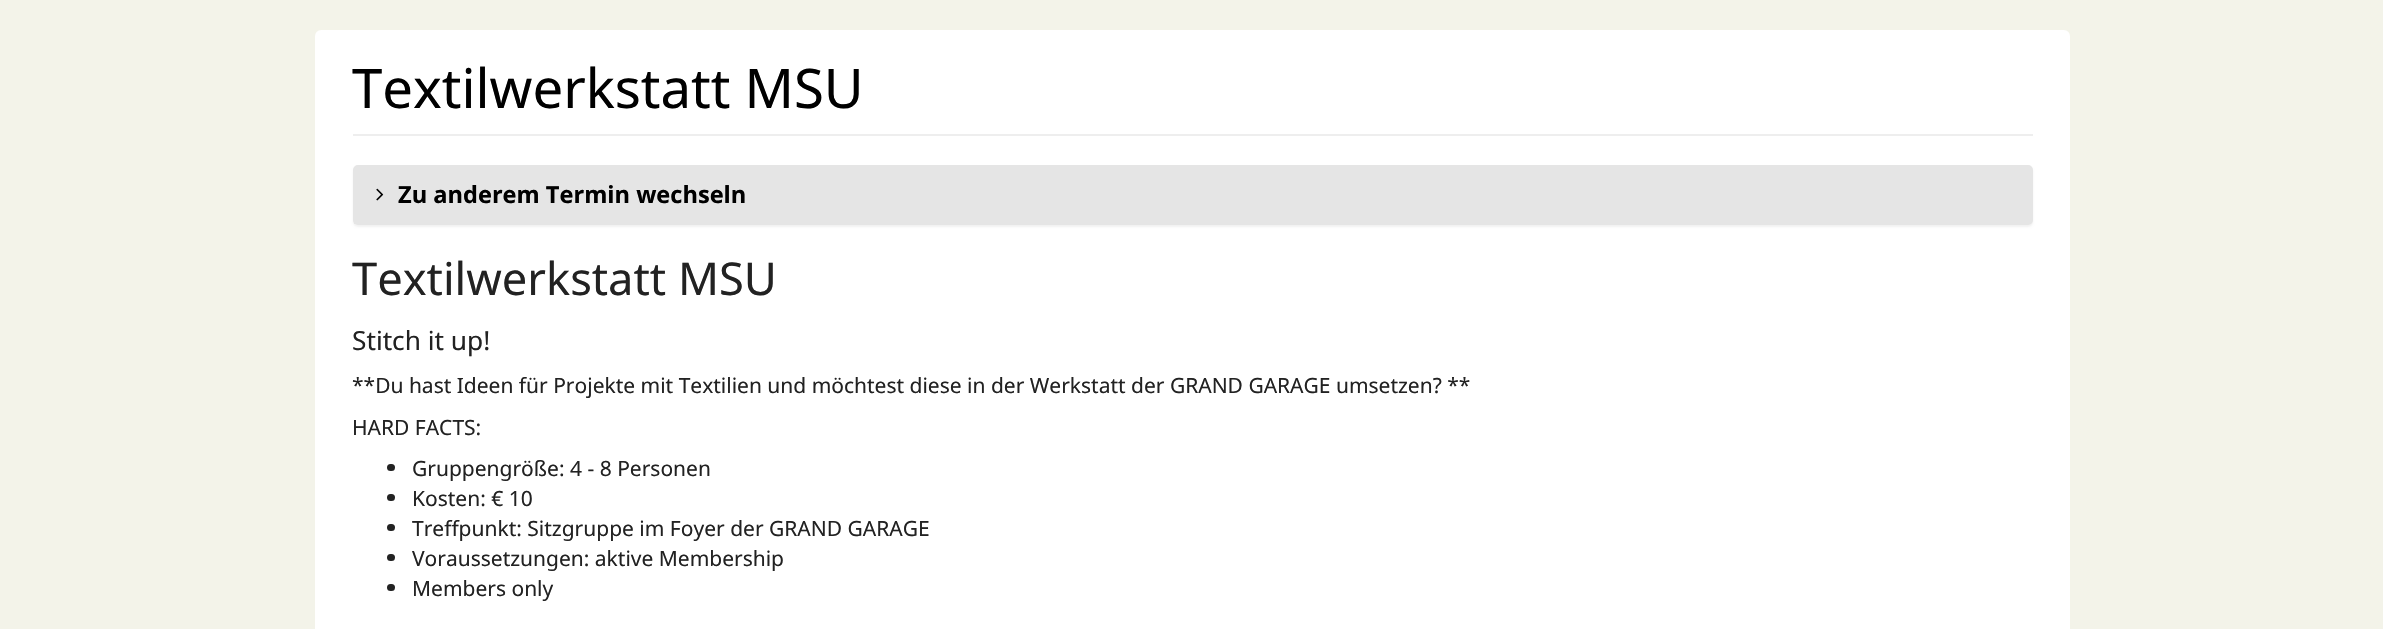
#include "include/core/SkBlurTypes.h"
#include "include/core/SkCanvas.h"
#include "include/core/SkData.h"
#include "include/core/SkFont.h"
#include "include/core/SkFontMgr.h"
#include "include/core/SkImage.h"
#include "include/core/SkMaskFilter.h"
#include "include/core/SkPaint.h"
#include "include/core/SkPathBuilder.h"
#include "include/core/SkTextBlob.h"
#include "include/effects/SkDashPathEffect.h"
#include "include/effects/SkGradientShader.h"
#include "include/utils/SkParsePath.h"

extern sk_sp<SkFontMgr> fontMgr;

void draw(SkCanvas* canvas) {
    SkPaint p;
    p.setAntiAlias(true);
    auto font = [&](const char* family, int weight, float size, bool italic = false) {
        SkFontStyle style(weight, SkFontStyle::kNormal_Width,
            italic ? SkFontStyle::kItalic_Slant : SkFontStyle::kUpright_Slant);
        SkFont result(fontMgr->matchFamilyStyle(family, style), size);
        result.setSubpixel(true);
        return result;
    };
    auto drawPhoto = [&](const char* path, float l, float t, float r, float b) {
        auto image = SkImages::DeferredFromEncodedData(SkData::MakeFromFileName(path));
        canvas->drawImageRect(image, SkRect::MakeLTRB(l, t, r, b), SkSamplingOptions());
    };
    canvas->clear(0xFFF3F3E9);
    p.setColor(0xFFFFFFFF);
    canvas->drawRoundRect(SkRect::MakeLTRB(315, 30, 2070, 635), 6, 6, p);
    p.setColor(0xFFEEEEEE);
    canvas->drawRect(SkRect::MakeLTRB(353, 134, 2033, 136), p);
    auto font1 = font("Noto Sans", 400, 54.5f);
    p.setColor(0xFF000000);
    canvas->drawString("Textilwerkstatt MSU", 352, 108, font1, p);
    p.setColor(0x0D000000);
    p.setMaskFilter(SkMaskFilter::MakeBlur(kNormal_SkBlurStyle, 1));
    canvas->drawRoundRect(SkRect::MakeLTRB(353, 167, 2033, 227), 5, 5, p);
    p.setMaskFilter(nullptr);
    p.setStyle(SkPaint::kStroke_Style);
    p.setStrokeWidth(2);
    p.setColor(0xFFE5E5E5);
    canvas->drawRoundRect(SkRect::MakeLTRB(354, 166, 2032, 224), 4, 4, p);
    p.setStyle(SkPaint::kFill_Style);
    canvas->drawRect(SkRect::MakeLTRB(354, 167, 2031, 224), p);
    drawPhoto("media/1.png", 376, 188, 384, 201);
    auto font2 = font("Noto Sans", 700, 23.6f);
    p.setColor(0xFF000000);
    canvas->drawString("Zu anderem Termin wechseln", 398, 203, font2, p);
    auto font3 = font("Noto Sans", 400, 45.25f);
    p.setColor(0xFF222222);
    canvas->drawString("Textilwerkstatt MSU", 352, 295, font3, p);
    auto font4 = font("Noto Sans", 400, 26.25f);
    canvas->drawString("Stitch it up!", 352, 350, font4, p);
    auto font5 = font("Noto Sans", 400, 21);
    canvas->drawString("**Du hast Ideen für Projekte mit Textilien und möchtest diese in der Werkstatt der GRAND GARAGE umsetzen? **", 352, 393, font5, p);
    canvas->drawString("HARD FACTS:", 352, 435, font5, p);
    canvas->drawRoundRect(SkRect::MakeLTRB(387, 464, 395, 471), 3.5f, 3.5f, p);
    canvas->drawString("Gruppengröße: 4 - 8 Personen", 412, 476, font5, p);
    canvas->drawRoundRect(SkRect::MakeLTRB(387, 494, 395, 501), 3.5f, 3.5f, p);
    canvas->drawString("Kosten: € 10", 412, 506, font5, p);
    canvas->drawRoundRect(SkRect::MakeLTRB(387, 524, 395, 531), 3.5f, 3.5f, p);
    canvas->drawString("Treffpunkt: Sitzgruppe im Foyer der GRAND GARAGE", 412, 536, font5, p);
    canvas->drawRoundRect(SkRect::MakeLTRB(387, 554, 395, 561), 3.5f, 3.5f, p);
    canvas->drawString("Voraussetzungen: aktive Membership", 412, 566, font5, p);
    canvas->drawRoundRect(SkRect::MakeLTRB(387, 584, 395, 591), 3.5f, 3.5f, p);
    canvas->drawString("Members only", 412, 596, font5, p);
}
